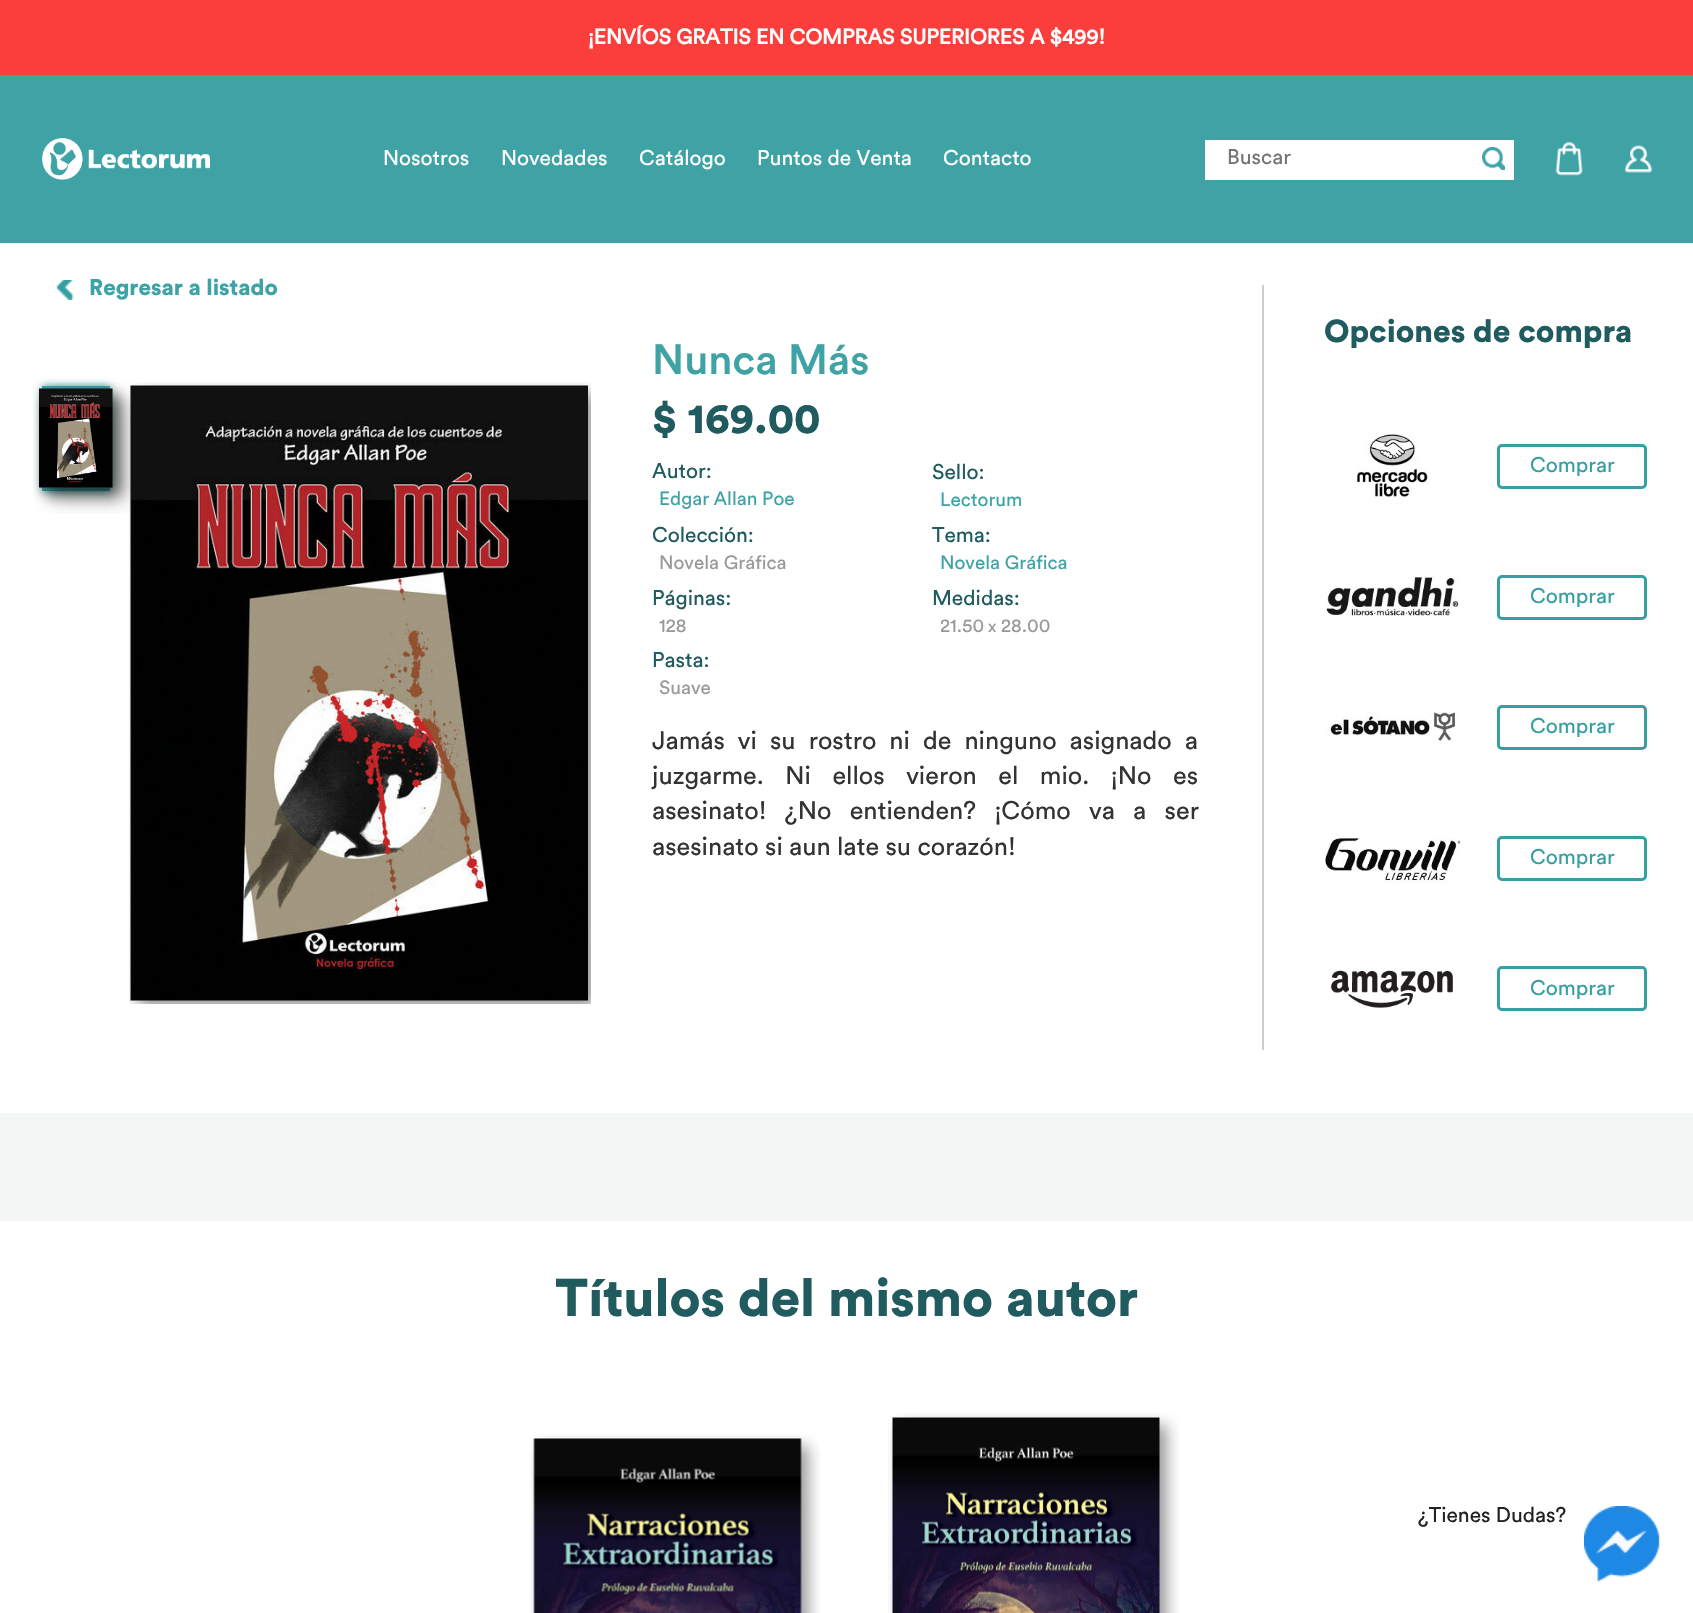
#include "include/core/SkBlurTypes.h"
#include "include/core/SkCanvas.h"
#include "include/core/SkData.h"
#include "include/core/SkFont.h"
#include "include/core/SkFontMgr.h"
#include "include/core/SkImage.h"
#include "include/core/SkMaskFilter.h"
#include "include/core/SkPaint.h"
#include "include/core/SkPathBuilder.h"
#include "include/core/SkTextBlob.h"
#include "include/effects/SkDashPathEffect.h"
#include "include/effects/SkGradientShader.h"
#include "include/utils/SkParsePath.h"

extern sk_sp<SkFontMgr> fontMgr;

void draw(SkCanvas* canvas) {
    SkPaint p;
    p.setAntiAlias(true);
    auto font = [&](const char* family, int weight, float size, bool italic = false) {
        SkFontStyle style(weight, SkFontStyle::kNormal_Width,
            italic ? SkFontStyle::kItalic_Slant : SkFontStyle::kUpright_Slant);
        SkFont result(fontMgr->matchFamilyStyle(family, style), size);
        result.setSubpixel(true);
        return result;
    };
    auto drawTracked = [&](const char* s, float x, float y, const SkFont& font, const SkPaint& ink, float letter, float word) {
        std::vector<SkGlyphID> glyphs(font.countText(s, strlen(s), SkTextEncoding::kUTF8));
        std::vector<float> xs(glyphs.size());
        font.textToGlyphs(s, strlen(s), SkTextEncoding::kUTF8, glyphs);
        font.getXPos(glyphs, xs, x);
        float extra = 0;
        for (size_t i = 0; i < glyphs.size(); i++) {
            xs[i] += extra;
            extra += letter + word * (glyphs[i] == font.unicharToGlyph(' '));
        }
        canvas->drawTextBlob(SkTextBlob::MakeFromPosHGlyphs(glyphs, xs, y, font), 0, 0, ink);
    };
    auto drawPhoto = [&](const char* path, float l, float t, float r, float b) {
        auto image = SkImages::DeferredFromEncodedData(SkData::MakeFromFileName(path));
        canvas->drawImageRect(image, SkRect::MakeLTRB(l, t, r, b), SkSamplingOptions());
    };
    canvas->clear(0xFFFFFFFF);
    p.setColor(0xFFFA3E3C);
    canvas->drawRect(SkRect::MakeLTRB(0, 0, 1693, 75), p);
    auto font1 = font("Circular", 700, 21);
    p.setColor(0xFFFFFFFF);
    canvas->drawString("¡ENVÍOS GRATIS EN COMPRAS SUPERIORES A $499!", 588, 44, font1, p);
    p.setColor(0xFF3FA3A5);
    canvas->drawRect(SkRect::MakeLTRB(0, 75, 1693, 243), p);
    drawPhoto("media/1.png", 42, 138, 210, 180);
    auto font2 = font("Circular", 400, 21);
    p.setColor(0xFFFFFFFF);
    {
        const struct { const char* s; float x, y; } items[] = {
            {"Nosotros", 383, 165},
            {"Novedades", 501, 165},
            {"Catálogo", 639, 165},
            {"Puntos de Venta", 757, 165},
            {"Contacto", 943, 165},
        };
        for (auto [s, x, y] : items) {
            canvas->drawString(s, x, y, font2, p);
        }
    }
    canvas->drawRect(SkRect::MakeLTRB(1205, 140, 1514, 180), p);
    p.setColor(0xFF757575);
    canvas->drawString("Buscar", 1227, 164, font2, p);
    drawPhoto("media/2.png", 1482, 147, 1505, 170);
    drawPhoto("media/3.png", 1555, 142, 1583, 176);
    drawPhoto("media/4.png", 1624, 145, 1652, 173);
    drawPhoto("media/5.png", 56, 280, 74, 300);
    auto font3 = font("Circular", 900, 22.5f);
    p.setColor(0xFF3FA3A5);
    canvas->drawString("Regresar a listado", 89, 295, font3, p);
    p.setMaskFilter(SkMaskFilter::MakeBlur(kNormal_SkBlurStyle, 4));
    canvas->drawRect(SkRect::MakeLTRB(42, 386, 110, 491), p);
    p.setMaskFilter(nullptr);
    p.setStyle(SkPaint::kStroke_Style);
    p.setStrokeWidth(3);
    canvas->drawRect(SkRect::MakeLTRB(43.5f, 387.5f, 108.5f, 489.5f), p);
    drawPhoto("media/6.png", 33, 382, 131, 514);
    drawPhoto("media/7.png", 129, 382, 591, 1004);
    auto font4 = font("Circular", 500, 42);
    p.setStyle(SkPaint::kFill_Style);
    canvas->drawString("Nunca Más", 652, 374, font4, p);
    auto font5 = font("Circular", 900, 42);
    p.setColor(0xFF1F5B5F);
    canvas->drawString("$ 169.00", 652, 433, font5, p);
    canvas->drawString("Autor:", 652, 478, font2, p);
    auto font6 = font("Circular", 400, 19);
    p.setColor(0xFF3FA3A5);
    canvas->drawString("Edgar Allan Poe", 659, 505, font6, p);
    p.setColor(0xFF1F5B5F);
    canvas->drawString("Sello:", 932, 479, font2, p);
    p.setColor(0xFF3FA3A5);
    canvas->drawString("Lectorum", 940, 506, font6, p);
    p.setColor(0xFF1F5B5F);
    canvas->drawString("Colección:", 652, 542, font2, p);
    p.setColor(0xFF999999);
    canvas->drawString("Novela Gráfica", 659, 569, font6, p);
    p.setColor(0xFF1F5B5F);
    canvas->drawString("Tema:", 932, 542, font2, p);
    p.setColor(0xFF3FA3A5);
    canvas->drawString("Novela Gráfica", 940, 569, font6, p);
    p.setColor(0xFF1F5B5F);
    canvas->drawString("Páginas:", 652, 605, font2, p);
    p.setColor(0xFF999999);
    canvas->drawString("128", 659, 632, font6, p);
    p.setColor(0xFF1F5B5F);
    canvas->drawString("Medidas:", 932, 605, font2, p);
    canvas->save();
    canvas->clipRect(SkRect::MakeLTRB(941, 617, 1199, 636));
    p.setColor(0xFF999999);
    canvas->drawString("21.50", 940, 632, font6, p);
    canvas->restore();
    auto font7 = font("Circular", 400, 17);
    canvas->drawString("x", 988, 632, font7, p);
    canvas->drawString("28.00", 1001, 632, font6, p);
    p.setColor(0xFF1F5B5F);
    canvas->drawString("Pasta:", 652, 667, font2, p);
    p.setColor(0xFF999999);
    canvas->drawString("Suave", 659, 694, font6, p);
    auto font8 = font("Circular", 400, 25.2f);
    p.setColor(0xFF333333);
    drawTracked("Jamás vi su rostro ni de ninguno asignado a", 652, 749, font8, p, 0, 6.75f);
    drawTracked("juzgarme. Ni ellos vieron el mio. ¡No es", 652, 784, font8, p, 0, 15.25f);
    drawTracked("asesinato! ¿No entienden? ¡Cómo va a ser", 652, 819, font8, p, 0, 12);
    canvas->drawString("asesinato si aun late su corazón!", 652, 855, font8, p);
    p.setColor(0xFFCCCCCC);
    canvas->drawRect(SkRect::MakeLTRB(1262, 285, 1264, 1050), p);
    auto font9 = font("Circular", 900, 31.5f);
    p.setColor(0xFF1F5B5F);
    canvas->drawString("Opciones de compra", 1324, 342, font9, p);
    drawPhoto("media/8.png", 1357, 433, 1430, 498);
    p.setStyle(SkPaint::kStroke_Style);
    p.setColor(0xFF379FA2);
    canvas->drawRoundRect(SkRect::MakeLTRB(1498.5f, 445.5f, 1645.5f, 487.5f), 3.5f, 3.5f, p);
    p.setStyle(SkPaint::kFill_Style);
    canvas->drawString("Comprar", 1530, 472, font2, p);
    drawPhoto("media/9.png", 1326, 575, 1459, 616);
    p.setStyle(SkPaint::kStroke_Style);
    canvas->drawRoundRect(SkRect::MakeLTRB(1498.5f, 576.5f, 1645.5f, 618.5f), 3.5f, 3.5f, p);
    p.setStyle(SkPaint::kFill_Style);
    canvas->drawString("Comprar", 1530, 603, font2, p);
    drawPhoto("media/10.png", 1326, 712, 1458, 741);
    p.setStyle(SkPaint::kStroke_Style);
    canvas->drawRoundRect(SkRect::MakeLTRB(1498.5f, 706.5f, 1645.5f, 748.5f), 3.5f, 3.5f, p);
    p.setStyle(SkPaint::kFill_Style);
    canvas->drawString("Comprar", 1530, 733, font2, p);
    drawPhoto("media/11.png", 1325, 838, 1461, 884);
    p.setStyle(SkPaint::kStroke_Style);
    canvas->drawRoundRect(SkRect::MakeLTRB(1498.5f, 837.5f, 1645.5f, 879.5f), 3.5f, 3.5f, p);
    p.setStyle(SkPaint::kFill_Style);
    canvas->drawString("Comprar", 1530, 864, font2, p);
    drawPhoto("media/12.png", 1331, 970, 1453, 1008);
    p.setStyle(SkPaint::kStroke_Style);
    canvas->drawRoundRect(SkRect::MakeLTRB(1498.5f, 967.5f, 1645.5f, 1009.5f), 3.5f, 3.5f, p);
    p.setStyle(SkPaint::kFill_Style);
    canvas->drawString("Comprar", 1530, 995, font2, p);
    p.setColor(0xFFF4F6F6);
    canvas->drawRect(SkRect::MakeLTRB(0, 1113, 1693, 1221), p);
    auto font10 = font("Circular", 900, 52.5f);
    p.setColor(0xFF1F5B5F);
    canvas->drawString("Títulos del mismo autor", 555, 1316, font10, p);
    drawPhoto("media/13.png", 530, 1434, 820, 1613);
    drawPhoto("media/14.png", 888, 1413, 1179, 1613);
    p.setColor(0xFF222222);
    canvas->drawString("¿Tienes Dudas?", 1418, 1522, font2, p);
    drawPhoto("media/15.png", 1584, 1506, 1660, 1582);
}
